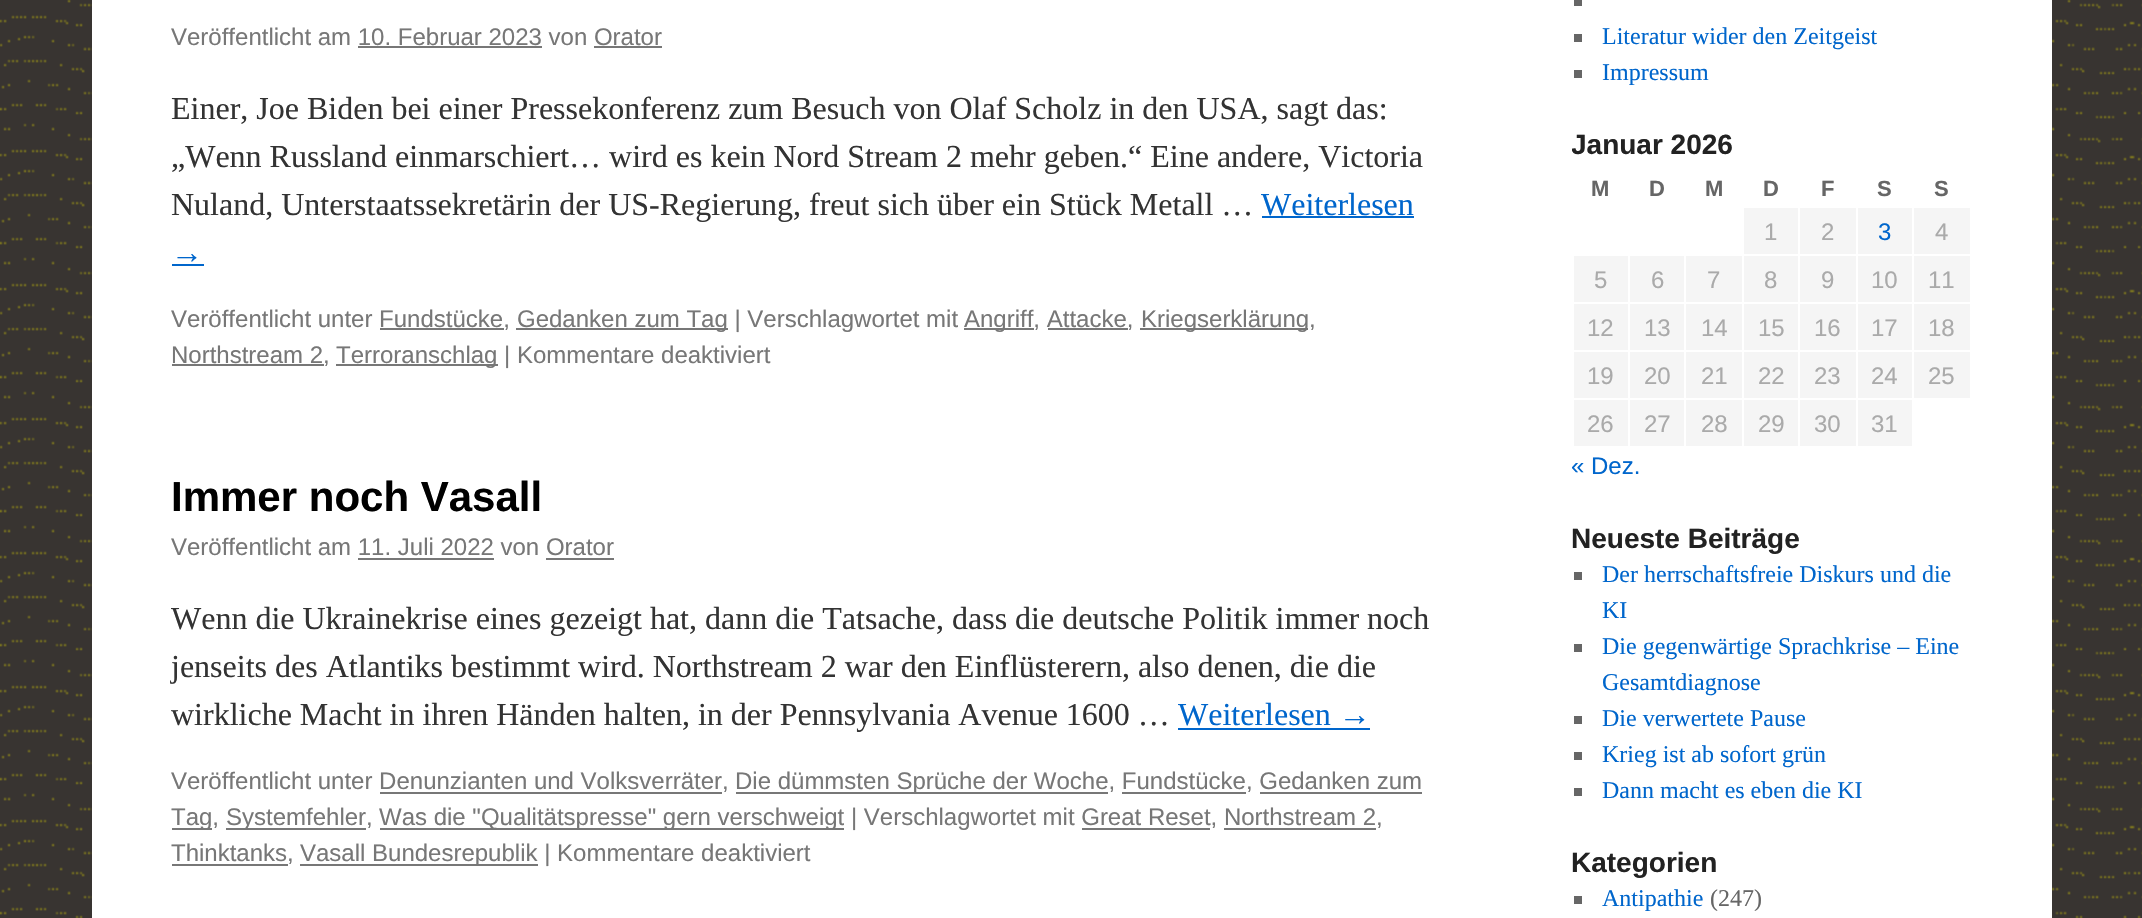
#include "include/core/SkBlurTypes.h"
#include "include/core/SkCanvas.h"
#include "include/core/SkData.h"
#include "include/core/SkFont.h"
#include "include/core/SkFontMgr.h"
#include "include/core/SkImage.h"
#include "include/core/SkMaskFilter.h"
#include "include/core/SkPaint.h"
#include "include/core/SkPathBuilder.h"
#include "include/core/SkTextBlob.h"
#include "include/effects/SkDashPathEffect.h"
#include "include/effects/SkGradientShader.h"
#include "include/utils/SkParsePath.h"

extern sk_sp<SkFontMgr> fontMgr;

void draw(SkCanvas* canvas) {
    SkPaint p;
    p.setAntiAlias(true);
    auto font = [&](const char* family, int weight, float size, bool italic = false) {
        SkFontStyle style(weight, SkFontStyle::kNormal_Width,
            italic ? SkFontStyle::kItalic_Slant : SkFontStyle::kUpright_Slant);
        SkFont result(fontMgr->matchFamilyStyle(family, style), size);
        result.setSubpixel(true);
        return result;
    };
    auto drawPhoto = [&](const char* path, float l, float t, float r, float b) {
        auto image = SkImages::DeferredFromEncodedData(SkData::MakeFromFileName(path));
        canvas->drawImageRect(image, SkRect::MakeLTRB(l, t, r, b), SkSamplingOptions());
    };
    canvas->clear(0xFFFFFFFF);
    drawPhoto("media/1.png", 0, 0, 2142, 918);
    p.setColor(0xFFFFFFFF);
    canvas->drawRect(SkRect::MakeLTRB(92, 0, 2052, 918), p);
    auto font1 = font("Liberation Sans", 400, 24);
    p.setColor(0xFF777777);
    canvas->drawString("Veröffentlicht am 10. Februar 2023 von Orator", 171, 45, font1, p);
    canvas->drawRect(SkRect::MakeLTRB(358, 46, 542, 48), p);
    canvas->drawRect(SkRect::MakeLTRB(594, 46, 662, 48), p);
    auto font2 = font("Liberation Serif", 400, 32);
    p.setColor(0xFF333333);
    {
        const struct { const char* s; float x, y; } items[] = {
            {"Einer, Joe Biden bei einer Pressekonferenz zum Besuch von Olaf Scholz in den USA, sagt das:", 171, 119},
            {"„Wenn Russland einmarschiert… wird es kein Nord Stream 2 mehr geben.“ Eine andere, Victoria", 171, 167},
            {"Nuland, Unterstaatssekretärin der US-Regierung, freut sich über ein Stück Metall …", 171, 215},
        };
        for (auto [s, x, y] : items) {
            canvas->drawString(s, x, y, font2, p);
        }
    }
    p.setColor(0xFF0066CC);
    canvas->drawString("Weiterlesen", 1261, 215, font2, p);
    canvas->drawRect(SkRect::MakeLTRB(1262, 216, 1414, 218), p);
    canvas->drawString("→", 171, 263, font2, p);
    canvas->drawRect(SkRect::MakeLTRB(172, 264, 204, 266), p);
    p.setColor(0xFF777777);
    canvas->drawString("Veröffentlicht unter Fundstücke,", 171, 327, font1, p);
    canvas->drawRect(SkRect::MakeLTRB(380, 328, 504, 330), p);
    canvas->drawRect(SkRect::MakeLTRB(516, 328, 728, 330), p);
    canvas->drawString("Gedanken zum Tag | Verschlagwortet mit", 517, 327, font1, p);
    canvas->drawRect(SkRect::MakeLTRB(964, 328, 1034, 330), p);
    canvas->drawString("Angriff, Attacke,", 964, 327, font1, p);
    canvas->drawRect(SkRect::MakeLTRB(1048, 328, 1128, 330), p);
    canvas->drawRect(SkRect::MakeLTRB(1140, 328, 1308, 330), p);
    canvas->drawString("Kriegserklärung,", 1141, 327, font1, p);
    canvas->drawRect(SkRect::MakeLTRB(172, 364, 324, 366), p);
    canvas->drawString("Northstream 2,", 171, 363, font1, p);
    canvas->drawRect(SkRect::MakeLTRB(336, 364, 498, 366), p);
    canvas->drawString("Terroranschlag | Kommentare deaktiviert", 336, 363, font1, p);
    auto font3 = font("Liberation Sans", 700, 42);
    p.setColor(0xFF000000);
    canvas->drawString("Immer noch Vasall", 171, 511, font3, p);
    p.setColor(0xFF777777);
    canvas->drawString("Veröffentlicht am 11. Juli 2022 von Orator", 171, 555, font1, p);
    canvas->drawRect(SkRect::MakeLTRB(358, 558, 494, 560), p);
    canvas->drawRect(SkRect::MakeLTRB(546, 558, 614, 560), p);
    p.setColor(0xFF333333);
    {
        const struct { const char* s; float x, y; } items[] = {
            {"Wenn die Ukrainekrise eines gezeigt hat, dann die Tatsache, dass die deutsche Politik immer noch", 171, 629},
            {"jenseits des Atlantiks bestimmt wird. Northstream 2 war den Einflüsterern, also denen, die die", 171, 677},
            {"wirkliche Macht in ihren Händen halten, in der Pennsylvania Avenue 1600 …", 171, 725},
        };
        for (auto [s, x, y] : items) {
            canvas->drawString(s, x, y, font2, p);
        }
    }
    p.setColor(0xFF0066CC);
    canvas->drawString("Weiterlesen →", 1178, 725, font2, p);
    canvas->drawRect(SkRect::MakeLTRB(1178, 728, 1370, 730), p);
    p.setColor(0xFF777777);
    canvas->drawString("Veröffentlicht unter Denunzianten und Volksverräter,", 171, 789, font1, p);
    canvas->drawRect(SkRect::MakeLTRB(380, 792, 722, 794), p);
    canvas->drawRect(SkRect::MakeLTRB(736, 792, 1108, 794), p);
    canvas->drawString("Die dümmsten Sprüche der Woche, Fundstücke, Gedanken zum", 735, 789, font1, p);
    {
        const struct { float l, t, r, b; SkColor color; } items[] = {
            {1122, 792, 1246, 794, 0xFF777777},
            {1260, 792, 1422, 794, 0xFF777777},
            {172, 828, 212, 830, 0xFF777777},
        };
        for (auto [l, t, r, b, color] : items) {
            p.setColor(color);
            canvas->drawRect(SkRect::MakeLTRB(l, t, r, b), p);
        }
    }
    canvas->drawString("Tag,", 171, 825, font1, p);
    canvas->drawRect(SkRect::MakeLTRB(226, 828, 366, 830), p);
    canvas->drawString("Systemfehler,", 226, 825, font1, p);
    canvas->drawRect(SkRect::MakeLTRB(380, 828, 844, 830), p);
    canvas->drawString("Was die \"Qualitätspresse\" gern verschweigt | Verschlagwortet mit Great Reset, Northstream 2,", 379, 825, font1, p);
    canvas->drawRect(SkRect::MakeLTRB(172, 864, 288, 866), p);
    canvas->drawString("Thinktanks,", 171, 861, font1, p);
    canvas->drawRect(SkRect::MakeLTRB(300, 864, 538, 866), p);
    canvas->drawString("Vasall Bundesrepublik | Kommentare deaktiviert", 300, 861, font1, p);
    {
        const struct { float l, t, r, b; SkColor color; } items[] = {
            {1082, 828, 1210, 830, 0xFF777777},
            {1224, 828, 1376, 830, 0xFF777777},
            {1574, 0, 1582, 6, 0xFF666666},
            {1574, 34, 1582, 42, 0xFF666666},
        };
        for (auto [l, t, r, b, color] : items) {
            p.setColor(color);
            canvas->drawRect(SkRect::MakeLTRB(l, t, r, b), p);
        }
    }
    auto font4 = font("Liberation Serif", 400, 24);
    p.setColor(0xFF0066CC);
    canvas->drawString("Literatur wider den Zeitgeist", 1602, 44, font4, p);
    p.setColor(0xFF666666);
    canvas->drawRect(SkRect::MakeLTRB(1574, 70, 1582, 78), p);
    p.setColor(0xFF0066CC);
    canvas->drawString("Impressum", 1602, 80, font4, p);
    canvas->save();
    canvas->clipRect(SkRect::MakeLTRB(1572, 0, 2012, 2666));
    auto font5 = font("Liberation Sans", 700, 28);
    p.setColor(0xFF222222);
    canvas->drawString("Januar 2026", 1571, 154, font5, p);
    canvas->restore();
    auto font6 = font("Liberation Sans", 700, 22);
    p.setColor(0xFF666666);
    {
        const struct { const char* s; float x, y; } items[] = {
            {"M", 1591, 196},
            {"D", 1649, 196},
            {"M", 1705, 196},
            {"D", 1763, 196},
            {"F", 1821, 196},
            {"S", 1877, 196},
            {"S", 1934, 196},
        };
        for (auto [s, x, y] : items) {
            canvas->drawString(s, x, y, font6, p);
        }
    }
    p.setColor(0xFFF5F5F5);
    canvas->drawRect(SkRect::MakeLTRB(1744, 208, 1798, 254), p);
    p.setColor(0xFFAAAAAA);
    canvas->drawString("1", 1764, 240, font1, p);
    p.setColor(0xFFF5F5F5);
    canvas->drawRect(SkRect::MakeLTRB(1800, 208, 1856, 254), p);
    p.setColor(0xFFAAAAAA);
    canvas->drawString("2", 1821, 240, font1, p);
    p.setColor(0xFFF5F5F5);
    canvas->drawRect(SkRect::MakeLTRB(1858, 208, 1912, 254), p);
    p.setColor(0xFF0066CC);
    canvas->drawString("3", 1878, 240, font1, p);
    p.setColor(0xFFF5F5F5);
    canvas->drawRect(SkRect::MakeLTRB(1914, 208, 1970, 254), p);
    p.setColor(0xFFAAAAAA);
    canvas->drawString("4", 1935, 240, font1, p);
    p.setColor(0xFFF5F5F5);
    canvas->drawRect(SkRect::MakeLTRB(1574, 256, 1628, 302), p);
    p.setColor(0xFFAAAAAA);
    canvas->drawString("5", 1594, 288, font1, p);
    p.setColor(0xFFF5F5F5);
    canvas->drawRect(SkRect::MakeLTRB(1630, 256, 1684, 302), p);
    p.setColor(0xFFAAAAAA);
    canvas->drawString("6", 1651, 288, font1, p);
    p.setColor(0xFFF5F5F5);
    canvas->drawRect(SkRect::MakeLTRB(1686, 256, 1742, 302), p);
    p.setColor(0xFFAAAAAA);
    canvas->drawString("7", 1707, 288, font1, p);
    p.setColor(0xFFF5F5F5);
    canvas->drawRect(SkRect::MakeLTRB(1744, 256, 1798, 302), p);
    p.setColor(0xFFAAAAAA);
    canvas->drawString("8", 1764, 288, font1, p);
    p.setColor(0xFFF5F5F5);
    canvas->drawRect(SkRect::MakeLTRB(1800, 256, 1856, 302), p);
    p.setColor(0xFFAAAAAA);
    canvas->drawString("9", 1821, 288, font1, p);
    p.setColor(0xFFF5F5F5);
    canvas->drawRect(SkRect::MakeLTRB(1858, 256, 1912, 302), p);
    p.setColor(0xFFAAAAAA);
    canvas->drawString("10", 1871, 288, font1, p);
    p.setColor(0xFFF5F5F5);
    canvas->drawRect(SkRect::MakeLTRB(1914, 256, 1970, 302), p);
    p.setColor(0xFFAAAAAA);
    canvas->drawString("11", 1928, 288, font1, p);
    p.setColor(0xFFF5F5F5);
    canvas->drawRect(SkRect::MakeLTRB(1574, 304, 1628, 350), p);
    p.setColor(0xFFAAAAAA);
    canvas->drawString("12", 1587, 336, font1, p);
    p.setColor(0xFFF5F5F5);
    canvas->drawRect(SkRect::MakeLTRB(1630, 304, 1684, 350), p);
    p.setColor(0xFFAAAAAA);
    canvas->drawString("13", 1644, 336, font1, p);
    p.setColor(0xFFF5F5F5);
    canvas->drawRect(SkRect::MakeLTRB(1686, 304, 1742, 350), p);
    p.setColor(0xFFAAAAAA);
    canvas->drawString("14", 1701, 336, font1, p);
    p.setColor(0xFFF5F5F5);
    canvas->drawRect(SkRect::MakeLTRB(1744, 304, 1798, 350), p);
    p.setColor(0xFFAAAAAA);
    canvas->drawString("15", 1758, 336, font1, p);
    p.setColor(0xFFF5F5F5);
    canvas->drawRect(SkRect::MakeLTRB(1800, 304, 1856, 350), p);
    p.setColor(0xFFAAAAAA);
    canvas->drawString("16", 1814, 336, font1, p);
    p.setColor(0xFFF5F5F5);
    canvas->drawRect(SkRect::MakeLTRB(1858, 304, 1912, 350), p);
    p.setColor(0xFFAAAAAA);
    canvas->drawString("17", 1871, 336, font1, p);
    p.setColor(0xFFF5F5F5);
    canvas->drawRect(SkRect::MakeLTRB(1914, 304, 1970, 350), p);
    p.setColor(0xFFAAAAAA);
    canvas->drawString("18", 1928, 336, font1, p);
    p.setColor(0xFFF5F5F5);
    canvas->drawRect(SkRect::MakeLTRB(1574, 352, 1628, 398), p);
    p.setColor(0xFFAAAAAA);
    canvas->drawString("19", 1587, 384, font1, p);
    p.setColor(0xFFF5F5F5);
    canvas->drawRect(SkRect::MakeLTRB(1630, 352, 1684, 398), p);
    p.setColor(0xFFAAAAAA);
    canvas->drawString("20", 1644, 384, font1, p);
    p.setColor(0xFFF5F5F5);
    canvas->drawRect(SkRect::MakeLTRB(1686, 352, 1742, 398), p);
    p.setColor(0xFFAAAAAA);
    canvas->drawString("21", 1701, 384, font1, p);
    p.setColor(0xFFF5F5F5);
    canvas->drawRect(SkRect::MakeLTRB(1744, 352, 1798, 398), p);
    p.setColor(0xFFAAAAAA);
    canvas->drawString("22", 1758, 384, font1, p);
    p.setColor(0xFFF5F5F5);
    canvas->drawRect(SkRect::MakeLTRB(1800, 352, 1856, 398), p);
    p.setColor(0xFFAAAAAA);
    canvas->drawString("23", 1814, 384, font1, p);
    p.setColor(0xFFF5F5F5);
    canvas->drawRect(SkRect::MakeLTRB(1858, 352, 1912, 398), p);
    p.setColor(0xFFAAAAAA);
    canvas->drawString("24", 1871, 384, font1, p);
    p.setColor(0xFFF5F5F5);
    canvas->drawRect(SkRect::MakeLTRB(1914, 352, 1970, 398), p);
    p.setColor(0xFFAAAAAA);
    canvas->drawString("25", 1928, 384, font1, p);
    p.setColor(0xFFF5F5F5);
    canvas->drawRect(SkRect::MakeLTRB(1574, 400, 1628, 446), p);
    p.setColor(0xFFAAAAAA);
    canvas->drawString("26", 1587, 432, font1, p);
    p.setColor(0xFFF5F5F5);
    canvas->drawRect(SkRect::MakeLTRB(1630, 400, 1684, 446), p);
    p.setColor(0xFFAAAAAA);
    canvas->drawString("27", 1644, 432, font1, p);
    p.setColor(0xFFF5F5F5);
    canvas->drawRect(SkRect::MakeLTRB(1686, 400, 1742, 446), p);
    p.setColor(0xFFAAAAAA);
    canvas->drawString("28", 1701, 432, font1, p);
    p.setColor(0xFFF5F5F5);
    canvas->drawRect(SkRect::MakeLTRB(1744, 400, 1798, 446), p);
    p.setColor(0xFFAAAAAA);
    canvas->drawString("29", 1758, 432, font1, p);
    p.setColor(0xFFF5F5F5);
    canvas->drawRect(SkRect::MakeLTRB(1800, 400, 1856, 446), p);
    p.setColor(0xFFAAAAAA);
    canvas->drawString("30", 1814, 432, font1, p);
    p.setColor(0xFFF5F5F5);
    canvas->drawRect(SkRect::MakeLTRB(1858, 400, 1912, 446), p);
    p.setColor(0xFFAAAAAA);
    canvas->drawString("31", 1871, 432, font1, p);
    p.setColor(0xFF0066CC);
    canvas->drawString("« Dez.", 1571, 474, font1, p);
    p.setColor(0xFF222222);
    canvas->drawString("Neueste Beiträge", 1571, 548, font5, p);
    p.setColor(0xFF666666);
    canvas->drawRect(SkRect::MakeLTRB(1574, 572, 1582, 580), p);
    p.setColor(0xFF0066CC);
    canvas->drawString("Der herrschaftsfreie Diskurs und die", 1602, 582, font4, p);
    canvas->drawString("KI", 1602, 618, font4, p);
    p.setColor(0xFF666666);
    canvas->drawRect(SkRect::MakeLTRB(1574, 644, 1582, 652), p);
    p.setColor(0xFF0066CC);
    canvas->drawString("Die gegenwärtige Sprachkrise – Eine", 1602, 654, font4, p);
    canvas->drawString("Gesamtdiagnose", 1602, 690, font4, p);
    p.setColor(0xFF666666);
    canvas->drawRect(SkRect::MakeLTRB(1574, 716, 1582, 724), p);
    p.setColor(0xFF0066CC);
    canvas->drawString("Die verwertete Pause", 1602, 726, font4, p);
    p.setColor(0xFF666666);
    canvas->drawRect(SkRect::MakeLTRB(1574, 752, 1582, 760), p);
    p.setColor(0xFF0066CC);
    canvas->drawString("Krieg ist ab sofort grün", 1602, 762, font4, p);
    p.setColor(0xFF666666);
    canvas->drawRect(SkRect::MakeLTRB(1574, 788, 1582, 796), p);
    p.setColor(0xFF0066CC);
    canvas->drawString("Dann macht es eben die KI", 1602, 798, font4, p);
    p.setColor(0xFF222222);
    canvas->drawString("Kategorien", 1571, 872, font5, p);
    p.setColor(0xFF666666);
    canvas->drawRect(SkRect::MakeLTRB(1574, 896, 1582, 904), p);
    p.setColor(0xFF0066CC);
    canvas->drawString("Antipathie", 1602, 906, font4, p);
    p.setColor(0xFF666666);
    canvas->drawString("(247)", 1710, 906, font4, p);
}
